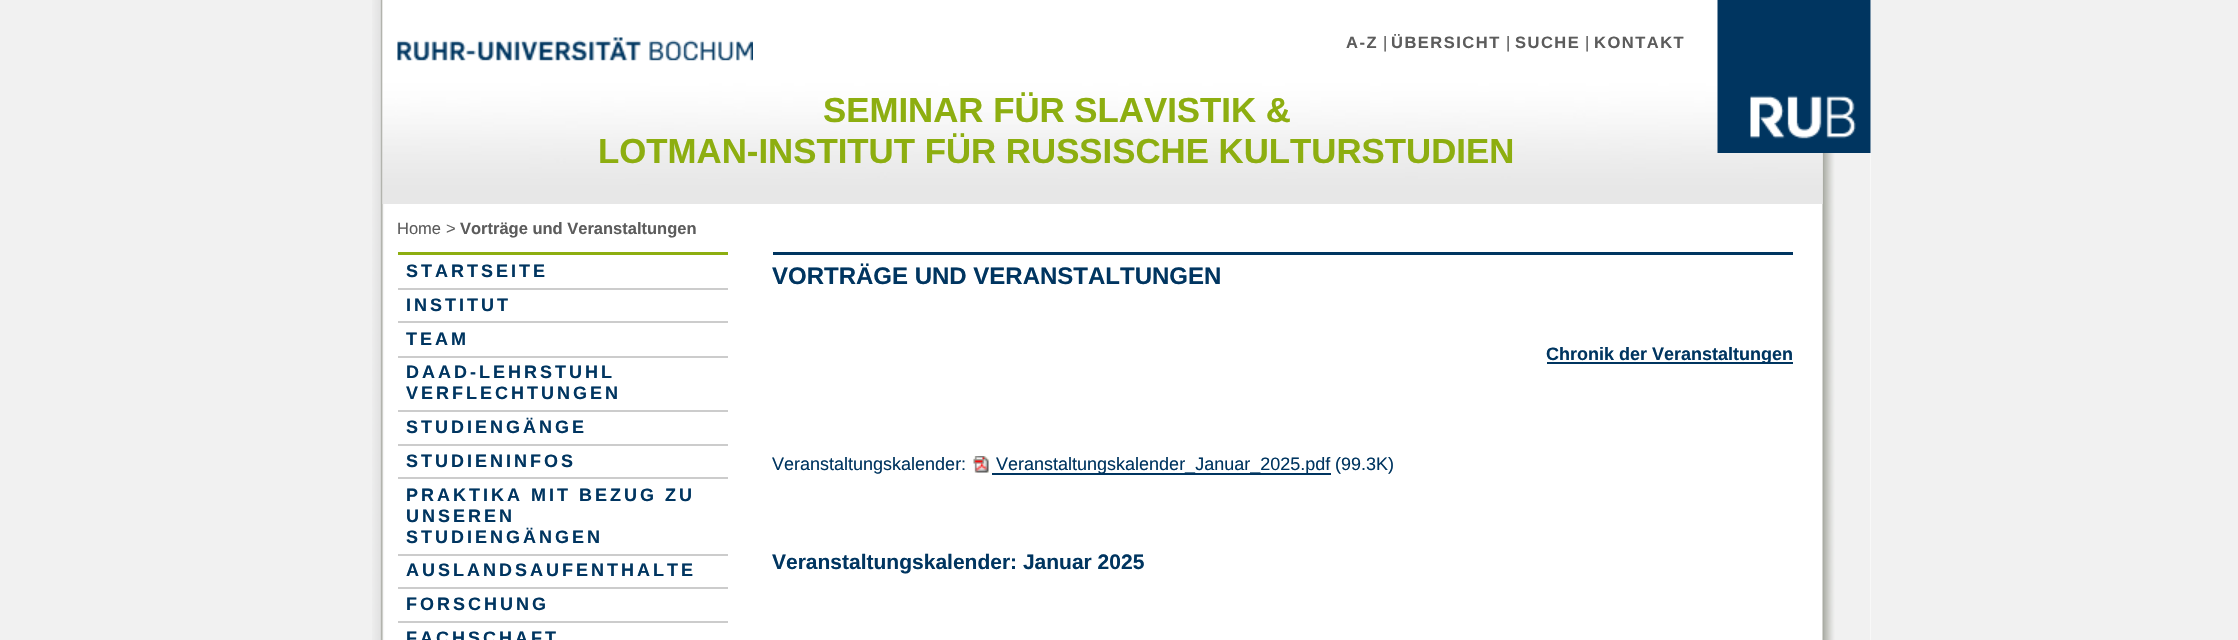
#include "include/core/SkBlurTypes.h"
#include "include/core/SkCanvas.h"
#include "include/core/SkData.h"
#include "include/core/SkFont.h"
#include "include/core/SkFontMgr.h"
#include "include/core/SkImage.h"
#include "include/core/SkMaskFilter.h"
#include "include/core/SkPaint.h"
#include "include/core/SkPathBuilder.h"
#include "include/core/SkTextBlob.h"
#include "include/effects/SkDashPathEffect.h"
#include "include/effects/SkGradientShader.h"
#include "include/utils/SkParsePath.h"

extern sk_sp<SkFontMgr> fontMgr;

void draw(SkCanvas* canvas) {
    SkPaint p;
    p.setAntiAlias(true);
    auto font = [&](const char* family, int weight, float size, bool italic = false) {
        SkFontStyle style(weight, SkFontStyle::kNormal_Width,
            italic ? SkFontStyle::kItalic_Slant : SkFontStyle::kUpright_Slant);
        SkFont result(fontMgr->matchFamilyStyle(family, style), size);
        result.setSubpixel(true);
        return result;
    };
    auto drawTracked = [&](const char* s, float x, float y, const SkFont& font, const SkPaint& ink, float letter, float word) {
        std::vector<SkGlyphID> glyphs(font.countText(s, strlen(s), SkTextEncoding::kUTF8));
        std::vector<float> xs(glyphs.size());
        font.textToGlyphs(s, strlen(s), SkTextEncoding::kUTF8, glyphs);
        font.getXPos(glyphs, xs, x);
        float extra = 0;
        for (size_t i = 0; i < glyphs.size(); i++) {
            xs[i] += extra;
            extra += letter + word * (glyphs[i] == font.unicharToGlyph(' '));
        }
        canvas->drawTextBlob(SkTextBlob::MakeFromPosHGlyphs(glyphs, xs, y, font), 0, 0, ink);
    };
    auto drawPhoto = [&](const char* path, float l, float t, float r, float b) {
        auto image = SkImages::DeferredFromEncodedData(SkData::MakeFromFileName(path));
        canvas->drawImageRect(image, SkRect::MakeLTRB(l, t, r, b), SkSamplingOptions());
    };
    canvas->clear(0xFFF1F1F1);
    drawPhoto("media/1.png", 372, 0, 1871, 640);
    drawPhoto("media/2.png", 1822, 153, 1870, 640);
    drawPhoto("media/3.png", 1822, 153, 1823, 204);
    drawPhoto("media/4.png", 382, 0, 1823, 204);
    drawPhoto("media/5.png", 397, 37, 753, 61);
    auto font1 = font("Liberation Sans", 700, 16.5f);
    p.setColor(0xFF5C5C5C);
    drawTracked("A-Z", 1346, 48, font1, p, 1.5f, 0);
    auto font2 = font("Liberation Sans", 400, 16.5f);
    canvas->drawString("|", 1383, 48, font2, p);
    drawTracked("ÜBERSICHT", 1391, 48, font1, p, 1.5f, 0);
    canvas->drawString("|", 1506, 48, font2, p);
    drawTracked("SUCHE", 1515, 48, font1, p, 1.5f, 0);
    canvas->drawString("|", 1585, 48, font2, p);
    drawTracked("KONTAKT", 1594, 48, font1, p, 1.5f, 0);
    drawPhoto("media/6.png", 1717, 0, 1871, 153);
    auto font3 = font("Liberation Sans", 700, 34.8f);
    p.setColor(0xFF8DAE10);
    canvas->drawString("SEMINAR FÜR SLAVISTIK &", 823, 122, font3, p);
    canvas->drawString("LOTMAN-INSTITUT FÜR RUSSISCHE KULTURSTUDIEN", 598, 163, font3, p);
    p.setColor(0xFF5C5C5C);
    canvas->drawString("Home", 397, 234, font2, p);
    p.setColor(0xFF626262);
    canvas->drawString(">", 446, 234, font2, p);
    p.setColor(0xFF5C5C5C);
    canvas->drawString("Vorträge und Veranstaltungen", 460, 234, font1, p);
    p.setColor(0xFF8DAE10);
    canvas->drawRect(SkRect::MakeLTRB(398, 252, 728, 255), p);
    p.setColor(0xFFCCCCCC);
    canvas->drawRect(SkRect::MakeLTRB(398, 288, 728, 290), p);
    auto font4 = font("Liberation Sans", 700, 18);
    p.setColor(0xFF003560);
    drawTracked("STARTSEITE", 406, 277, font4, p, 3, 0);
    p.setColor(0xFFCCCCCC);
    canvas->drawRect(SkRect::MakeLTRB(398, 321, 728, 323), p);
    p.setColor(0xFF003560);
    drawTracked("INSTITUT", 406, 311, font4, p, 3, 0);
    p.setColor(0xFFCCCCCC);
    canvas->drawRect(SkRect::MakeLTRB(398, 356, 728, 358), p);
    p.setColor(0xFF003560);
    drawTracked("TEAM", 406, 345, font4, p, 3, 0);
    p.setColor(0xFFCCCCCC);
    canvas->drawRect(SkRect::MakeLTRB(398, 410, 728, 412), p);
    p.setColor(0xFF003560);
    drawTracked("DAAD-LEHRSTUHL", 406, 378, font4, p, 3, 0);
    drawTracked("VERFLECHTUNGEN", 406, 399, font4, p, 3, 0);
    p.setColor(0xFFCCCCCC);
    canvas->drawRect(SkRect::MakeLTRB(398, 444, 728, 446), p);
    p.setColor(0xFF003560);
    drawTracked("STUDIENGÄNGE", 406, 433, font4, p, 3, 0);
    p.setColor(0xFFCCCCCC);
    canvas->drawRect(SkRect::MakeLTRB(398, 477, 728, 479), p);
    p.setColor(0xFF003560);
    drawTracked("STUDIENINFOS", 406, 467, font4, p, 3, 0);
    p.setColor(0xFFCCCCCC);
    canvas->drawRect(SkRect::MakeLTRB(398, 554, 728, 556), p);
    p.setColor(0xFF003560);
    {
        const struct { const char* s; float x, y; } items[] = {
            {"PRAKTIKA MIT BEZUG ZU", 406, 501},
            {"UNSEREN", 406, 522},
            {"STUDIENGÄNGEN", 406, 543},
        };
        for (auto [s, x, y] : items) {
            drawTracked(s, x, y, font4, p, 3, 0);
        }
    }
    p.setColor(0xFFCCCCCC);
    canvas->drawRect(SkRect::MakeLTRB(398, 587, 728, 589), p);
    p.setColor(0xFF003560);
    drawTracked("AUSLANDSAUFENTHALTE", 406, 576, font4, p, 3, 0);
    p.setColor(0xFFCCCCCC);
    canvas->drawRect(SkRect::MakeLTRB(398, 621, 728, 623), p);
    p.setColor(0xFF003560);
    drawTracked("FORSCHUNG", 406, 610, font4, p, 3, 0);
    drawTracked("FACHSCHAFT", 406, 644, font4, p, 3, 0);
    canvas->drawRect(SkRect::MakeLTRB(773, 252, 1793, 255), p);
    auto font5 = font("Liberation Sans", 700, 24);
    canvas->drawString("VORTRÄGE UND VERANSTALTUNGEN", 772, 284, font5, p);
    canvas->drawRect(SkRect::MakeLTRB(1547, 362, 1793, 364), p);
    canvas->drawString("Chronik der Veranstaltungen", 1546, 360, font4, p);
    auto font6 = font("Liberation Sans", 400, 18);
    canvas->drawString("Veranstaltungskalender:", 772, 470, font6, p);
    drawPhoto("media/7.png", 973, 456, 989, 473);
    canvas->drawRect(SkRect::MakeLTRB(992, 473, 1331, 475), p);
    canvas->drawString("Veranstaltungskalender_Januar_2025.pdf", 996, 470, font6, p);
    canvas->drawString("(99.3K)", 1335, 470, font6, p);
    auto font7 = font("Liberation Sans", 700, 21);
    canvas->drawString("Veranstaltungskalender: Januar 2025", 772, 569, font7, p);
}
